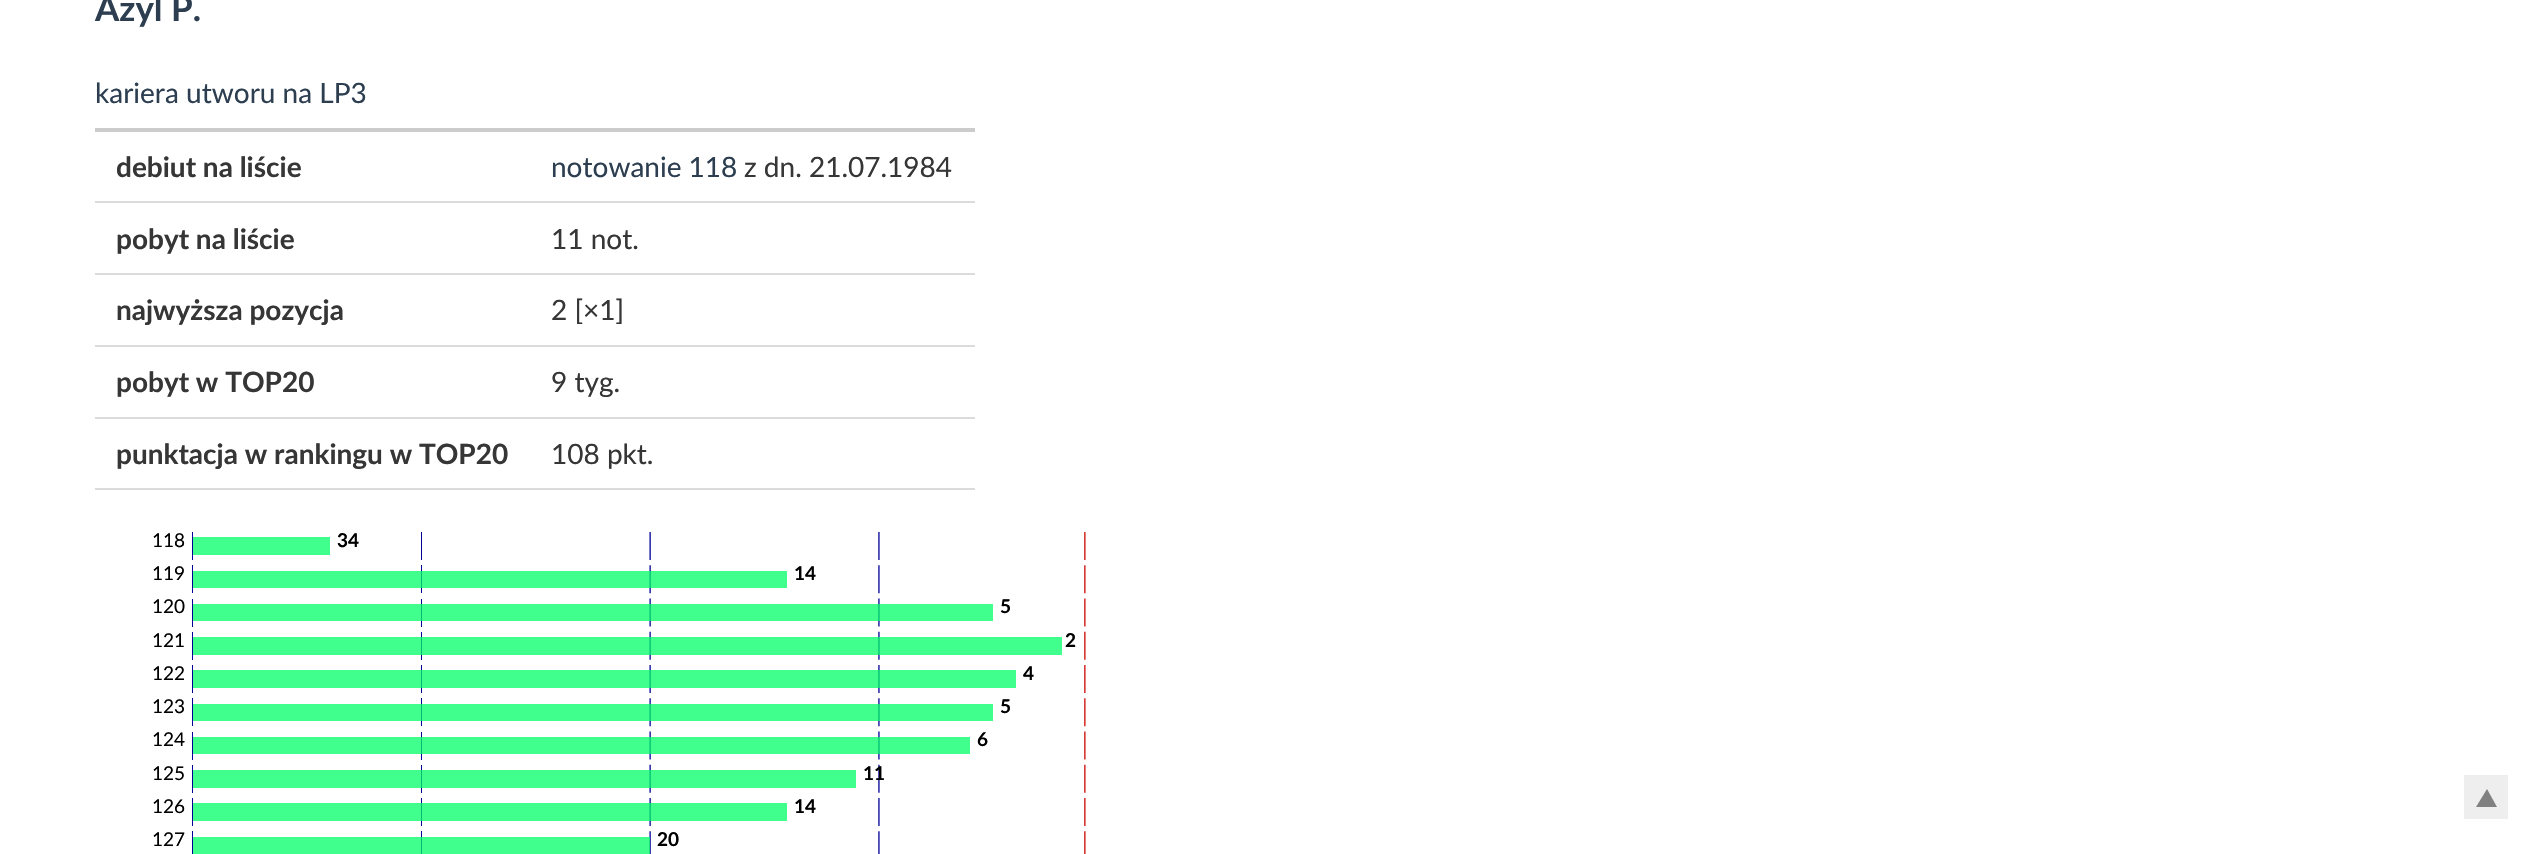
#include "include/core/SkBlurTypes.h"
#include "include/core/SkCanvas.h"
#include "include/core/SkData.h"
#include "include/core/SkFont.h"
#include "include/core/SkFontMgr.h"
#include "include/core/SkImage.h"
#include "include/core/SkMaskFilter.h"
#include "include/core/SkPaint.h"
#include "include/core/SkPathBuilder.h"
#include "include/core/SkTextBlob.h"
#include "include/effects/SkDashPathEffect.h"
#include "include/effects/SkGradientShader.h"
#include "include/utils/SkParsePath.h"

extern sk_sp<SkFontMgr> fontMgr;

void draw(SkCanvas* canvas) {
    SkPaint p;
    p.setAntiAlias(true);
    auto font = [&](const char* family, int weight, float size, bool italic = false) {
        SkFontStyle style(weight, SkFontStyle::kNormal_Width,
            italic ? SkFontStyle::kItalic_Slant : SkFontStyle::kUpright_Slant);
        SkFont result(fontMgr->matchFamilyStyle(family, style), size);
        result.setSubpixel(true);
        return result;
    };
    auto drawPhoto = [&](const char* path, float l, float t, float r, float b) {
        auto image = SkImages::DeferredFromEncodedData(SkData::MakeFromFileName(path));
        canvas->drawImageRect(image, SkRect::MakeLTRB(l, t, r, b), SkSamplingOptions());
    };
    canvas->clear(0xFFFFFFFF);
    auto font1 = font("Lato", 700, 35);
    p.setColor(0xFF2C3E50);
    canvas->drawString("Azyl P.", 95, 21, font1, p);
    auto font2 = font("Lato", 400, 28);
    canvas->drawString("kariera utworu na LP3", 95, 103, font2, p);
    p.setColor(0xFFCCCCCC);
    canvas->drawRect(SkRect::MakeLTRB(95, 128, 975, 132), p);
    auto font3 = font("Lato", 700, 28);
    p.setColor(0xFF363636);
    canvas->drawString("debiut na liście", 116, 177, font3, p);
    p.setColor(0xFFDBDBDB);
    canvas->drawRect(SkRect::MakeLTRB(95, 201, 975, 203), p);
    p.setColor(0xFF2C3E50);
    canvas->drawString("notowanie 118", 551, 177, font2, p);
    p.setColor(0xFF363636);
    canvas->drawString("z dn. 21.07.1984", 744, 177, font2, p);
    canvas->drawString("pobyt na liście", 116, 249, font3, p);
    p.setColor(0xFFDBDBDB);
    canvas->drawRect(SkRect::MakeLTRB(95, 273, 975, 275), p);
    p.setColor(0xFF363636);
    canvas->drawString("11 not.", 551, 249, font2, p);
    canvas->drawString("najwyższa pozycja", 116, 320, font3, p);
    p.setColor(0xFFDBDBDB);
    canvas->drawRect(SkRect::MakeLTRB(95, 345, 975, 347), p);
    p.setColor(0xFF363636);
    canvas->drawString("2 [×1]", 551, 320, font2, p);
    canvas->drawString("pobyt w TOP20", 116, 392, font3, p);
    p.setColor(0xFFDBDBDB);
    canvas->drawRect(SkRect::MakeLTRB(95, 417, 975, 419), p);
    p.setColor(0xFF363636);
    canvas->drawString("9 tyg.", 551, 392, font2, p);
    canvas->drawString("punktacja w rankingu w TOP20", 116, 464, font3, p);
    p.setColor(0xFFDBDBDB);
    canvas->drawRect(SkRect::MakeLTRB(95, 488, 975, 490), p);
    p.setColor(0xFF363636);
    canvas->drawString("108 pkt.", 551, 464, font2, p);
    drawPhoto("media/1.png", 192, 532, 1086, 854);
    auto font4 = font("Lato", 400, 19);
    p.setColor(0xFF000000);
    canvas->drawString("118", 152, 547, font4, p);
    auto font5 = font("Lato", 700, 19);
    canvas->drawString("34", 337, 547, font5, p);
    canvas->drawString("119", 152, 580, font4, p);
    canvas->drawString("14", 794, 580, font5, p);
    canvas->drawString("120", 152, 613, font4, p);
    canvas->drawString("5", 1000, 613, font5, p);
    canvas->drawString("121", 152, 647, font4, p);
    canvas->drawString("2", 1065, 647, font5, p);
    canvas->drawString("122", 152, 680, font4, p);
    canvas->drawString("4", 1023, 680, font5, p);
    canvas->drawString("123", 152, 713, font4, p);
    canvas->drawString("5", 1000, 713, font5, p);
    canvas->drawString("124", 152, 746, font4, p);
    canvas->drawString("6", 977, 746, font5, p);
    canvas->drawString("125", 152, 780, font4, p);
    canvas->drawString("11", 863, 780, font5, p);
    canvas->drawString("126", 152, 813, font4, p);
    canvas->drawString("14", 794, 813, font5, p);
    canvas->drawString("127", 152, 846, font4, p);
    canvas->drawString("20", 657, 846, font5, p);
    p.setColor(0xFFEEEEEE);
    canvas->drawRect(SkRect::MakeLTRB(2464, 775, 2508, 819), p);
    p.setColor(0xFF808080);
    canvas->drawPath(SkPathBuilder().moveTo(2497, 807).lineTo(2476, 807).lineTo(2487, 789).close().detach(), p);
}
